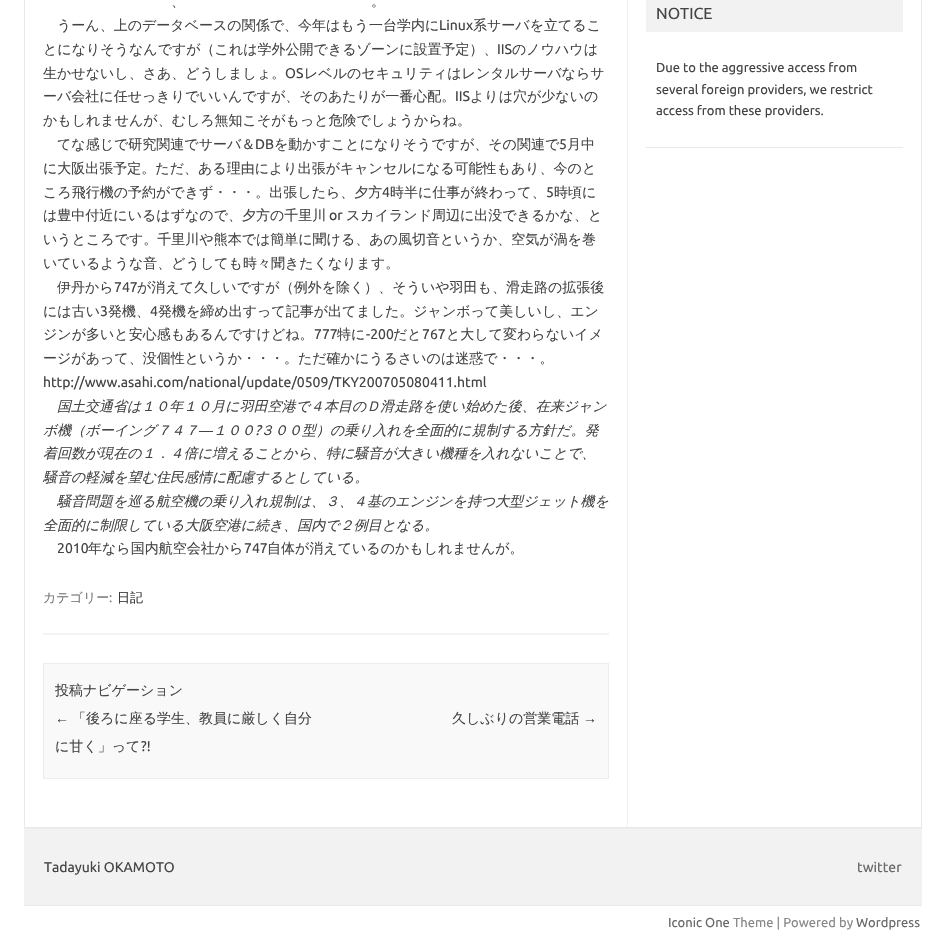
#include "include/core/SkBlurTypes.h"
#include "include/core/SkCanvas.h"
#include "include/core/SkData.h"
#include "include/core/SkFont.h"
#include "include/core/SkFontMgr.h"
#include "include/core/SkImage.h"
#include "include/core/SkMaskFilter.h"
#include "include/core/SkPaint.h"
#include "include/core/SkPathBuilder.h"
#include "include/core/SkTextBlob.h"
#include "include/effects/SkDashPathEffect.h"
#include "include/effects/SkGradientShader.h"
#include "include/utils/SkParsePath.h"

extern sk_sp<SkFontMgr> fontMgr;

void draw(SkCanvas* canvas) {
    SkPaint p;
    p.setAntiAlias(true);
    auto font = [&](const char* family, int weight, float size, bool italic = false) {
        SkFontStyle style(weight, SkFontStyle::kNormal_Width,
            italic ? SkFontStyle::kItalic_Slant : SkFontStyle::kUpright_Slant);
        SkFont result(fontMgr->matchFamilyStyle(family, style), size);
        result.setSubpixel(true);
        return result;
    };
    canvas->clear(0xFFFFFFFF);
    p.setStyle(SkPaint::kStroke_Style);
    p.setStrokeWidth(1);
    p.setColor(0xFFE9E9E9);
    canvas->drawRect(SkRect::MakeLTRB(24.5f, -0.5f, 921.5f, 827.5f), p);
    p.setStyle(SkPaint::kFill_Style);
    p.setColor(0xFFF1F1F1);
    canvas->drawRect(SkRect::MakeLTRB(627, 0, 628, 827), p);
    p.setColor(0xFFF3F3F3);
    canvas->drawRect(SkRect::MakeLTRB(43, 633, 609, 635), p);
    auto font1 = font("WenQuanYi Zen Hei", 500, 14);
    p.setColor(0xFF444444);
    {
        const struct { const char* s; float x, y; } items[] = {
            {"、", 171, 6},
            {"。", 371, 6},
            {"うーん、上のデータベースの関係で、今年はもう一台学内に", 57, 30},
        };
        for (auto [s, x, y] : items) {
            canvas->drawString(s, x, y, font1, p);
        }
    }
    auto font2 = font("Ubuntu", 400, 14);
    canvas->drawString("Linux", 439, 30, font2, p);
    canvas->drawString("系サーバを立てるこ", 473, 30, font1, p);
    canvas->drawString("とになりそうなんですが（これは学外公開できるゾーンに設置予定）、", 43, 54, font1, p);
    canvas->drawString("IIS", 497, 54, font2, p);
    canvas->drawString("のノウハウは", 512, 54, font1, p);
    canvas->drawString("生かせないし、さあ、どうしましょ。", 43, 78, font1, p);
    canvas->drawString("OS", 285, 78, font2, p);
    canvas->drawString("レベルのセキュリティはレンタルサーバならサ", 304, 78, font1, p);
    canvas->drawString("ーバ会社に任せっきりでいいんですが、そのあたりが一番心配。", 43, 101, font1, p);
    canvas->drawString("IIS", 455, 101, font2, p);
    {
        const struct { const char* s; float x, y; } items[] = {
            {"よりは穴が少ないの", 470, 101},
            {"かもしれませんが、むしろ無知こそがもっと危険でしょうからね。", 43, 125},
            {"てな感じで研究関連でサーバ＆", 57, 149},
        };
        for (auto [s, x, y] : items) {
            canvas->drawString(s, x, y, font1, p);
        }
    }
    canvas->drawString("DB", 255, 149, font2, p);
    canvas->drawString("を動かすことになりそうですが、その関連で", 274, 149, font1, p);
    canvas->drawString("5", 559, 149, font2, p);
    {
        const struct { const char* s; float x, y; } items[] = {
            {"月中", 567, 149},
            {"に大阪出張予定。ただ、ある理由により出張がキャンセルになる可能性もあり、今のと", 43, 173},
            {"ころ飛行機の予約ができず・・・。出張したら、夕方", 43, 197},
        };
        for (auto [s, x, y] : items) {
            canvas->drawString(s, x, y, font1, p);
        }
    }
    canvas->drawString("4", 382, 197, font2, p);
    canvas->drawString("時半に仕事が終わって、", 390, 197, font1, p);
    canvas->drawString("5", 546, 197, font2, p);
    canvas->drawString("時頃に", 554, 197, font1, p);
    canvas->drawString("は豊中付近にいるはずなので、夕方の千里川", 43, 220, font1, p);
    canvas->drawString("or", 329, 220, font2, p);
    {
        const struct { const char* s; float x, y; } items[] = {
            {"スカイランド周辺に出没できるかな、と", 346, 220},
            {"いうところです。千里川や熊本では簡単に聞ける、あの風切音というか、空気が渦を巻", 43, 244},
            {"いているような音、どうしても時々聞きたくなります。", 43, 268},
            {"伊丹から", 57, 292},
        };
        for (auto [s, x, y] : items) {
            canvas->drawString(s, x, y, font1, p);
        }
    }
    canvas->drawString("747", 114, 292, font2, p);
    canvas->drawString("が消えて久しいですが（例外を除く）、そういや羽田も、滑走路の拡張後", 137, 292, font1, p);
    canvas->drawString("には古い", 43, 316, font1, p);
    canvas->drawString("3", 100, 316, font2, p);
    canvas->drawString("発機、", 108, 316, font1, p);
    canvas->drawString("4", 150, 316, font2, p);
    canvas->drawString("発機を締め出すって記事が出てました。ジャンボって美しいし、エン", 158, 316, font1, p);
    canvas->drawString("ジンが多いと安心感もあるんですけどね。", 43, 339, font1, p);
    canvas->drawString("777", 314, 339, font2, p);
    canvas->drawString("特に", 337, 339, font1, p);
    canvas->drawString("-200", 366, 339, font2, p);
    canvas->drawString("だと", 393, 339, font1, p);
    canvas->drawString("767", 422, 339, font2, p);
    canvas->drawString("と大して変わらないイメ", 446, 339, font1, p);
    canvas->drawString("ージがあって、没個性というか・・・。ただ確かにうるさいのは迷惑で・・・。", 43, 363, font1, p);
    canvas->drawString("http://www.asahi.com/national/update/0509/TKY200705080411.html", 43, 387, font2, p);
    auto font3 = font("WenQuanYi Zen Hei", 500, 14, true);
    canvas->drawString("国土交通省は１０年１０月に羽田空港で４本目のＤ滑走路を使い始めた後、在来ジャン", 57, 411, font3, p);
    canvas->drawString("ボ機（ボーイング７４７", 43, 435, font3, p);
    auto font4 = font("Liberation Sans", 400, 14, true);
    canvas->drawString("―", 199, 435, font4, p);
    canvas->drawString("１００", 213, 435, font3, p);
    auto font5 = font("Ubuntu", 400, 14, true);
    canvas->drawString("?", 255, 435, font5, p);
    {
        const struct { const char* s; float x, y; } items[] = {
            {"３００型）の乗り入れを全面的に規制する方針だ。発", 260, 435},
            {"着回数が現在の１．４倍に増えることから、特に騒音が大きい機種を入れないことで、", 43, 458},
            {"騒音の軽減を望む住民感情に配慮するとしている。", 43, 482},
            {"騒音問題を巡る航空機の乗り入れ規制は、３、４基のエンジンを持つ大型ジェット機を", 57, 506},
            {"全面的に制限している大阪空港に続き、国内で２例目となる。", 43, 530},
        };
        for (auto [s, x, y] : items) {
            canvas->drawString(s, x, y, font3, p);
        }
    }
    canvas->drawString("2010", 57, 553, font2, p);
    canvas->drawString("年なら国内航空会社から", 88, 553, font1, p);
    canvas->drawString("747", 244, 553, font2, p);
    canvas->drawString("自体が消えているのかもしれませんが。", 267, 553, font1, p);
    auto font6 = font("WenQuanYi Zen Hei", 500, 13);
    p.setColor(0xFF757575);
    canvas->drawString("カテゴリー", 43, 602, font6, p);
    auto font7 = font("Ubuntu", 400, 13);
    canvas->drawString(":", 109, 602, font7, p);
    p.setColor(0xFF333333);
    canvas->drawString("日記", 117, 602, font6, p);
    p.setColor(0xFFF9F9F9);
    canvas->drawRect(SkRect::MakeLTRB(43.5f, 663.5f, 608.5f, 778.5f), p);
    p.setStyle(SkPaint::kStroke_Style);
    p.setColor(0xFFEDEDED);
    canvas->drawRect(SkRect::MakeLTRB(43.5f, 663.5f, 608.5f, 778.5f), p);
    p.setStyle(SkPaint::kFill_Style);
    p.setColor(0xFF444444);
    canvas->drawString("投稿ナビゲーション", 55, 695, font1, p);
    auto font8 = font("Liberation Sans", 400, 14);
    canvas->drawString("←", 55, 723, font8, p);
    canvas->drawString("「後ろに座る学生、教員に厳しく自分", 72, 723, font1, p);
    canvas->drawString("に甘く」って", 55, 751, font1, p);
    canvas->drawString("?!", 141, 751, font2, p);
    canvas->drawString("久しぶりの営業電話", 452, 723, font1, p);
    canvas->drawString("→", 583, 723, font8, p);
    p.setColor(0xFFF2F2F2);
    canvas->drawRect(SkRect::MakeLTRB(646, 0, 903, 32), p);
    auto font9 = font("Ubuntu", 400, 16);
    p.setColor(0xFF444444);
    canvas->drawString("NOTICE", 656, 19, font9, p);
    p.setColor(0xFFE9E9E9);
    canvas->drawRect(SkRect::MakeLTRB(646, 147, 903, 148), p);
    p.setColor(0xFF444444);
    {
        const struct { const char* s; float x, y; } items[] = {
            {"Due to the aggressive access from", 656, 72},
            {"several foreign providers, we restrict", 656, 94},
            {"access from these providers.", 656, 115},
        };
        for (auto [s, x, y] : items) {
            canvas->drawString(s, x, y, font7, p);
        }
    }
    {
        const struct { float l, t, r, b; SkColor color; } items[] = {
            {24, 829, 922, 905, 0xFFF2F2F2},
            {24, 828, 922, 829, 0xFFEDEDED},
            {24, 905, 922, 906, 0xFFE9E9E9},
        };
        for (auto [l, t, r, b, color] : items) {
            p.setColor(color);
            canvas->drawRect(SkRect::MakeLTRB(l, t, r, b), p);
        }
    }
    p.setColor(0xFF444444);
    canvas->drawString("Tadayuki OKAMOTO", 44, 872, font2, p);
    p.setColor(0xFF686868);
    canvas->drawString("twitter", 857, 872, font2, p);
    canvas->drawString("Iconic One", 668, 927, font7, p);
    p.setColor(0xFF888888);
    canvas->drawString("Theme | Powered by", 733, 927, font7, p);
    p.setColor(0xFF686868);
    canvas->drawString("Wordpress", 856, 927, font7, p);
}
